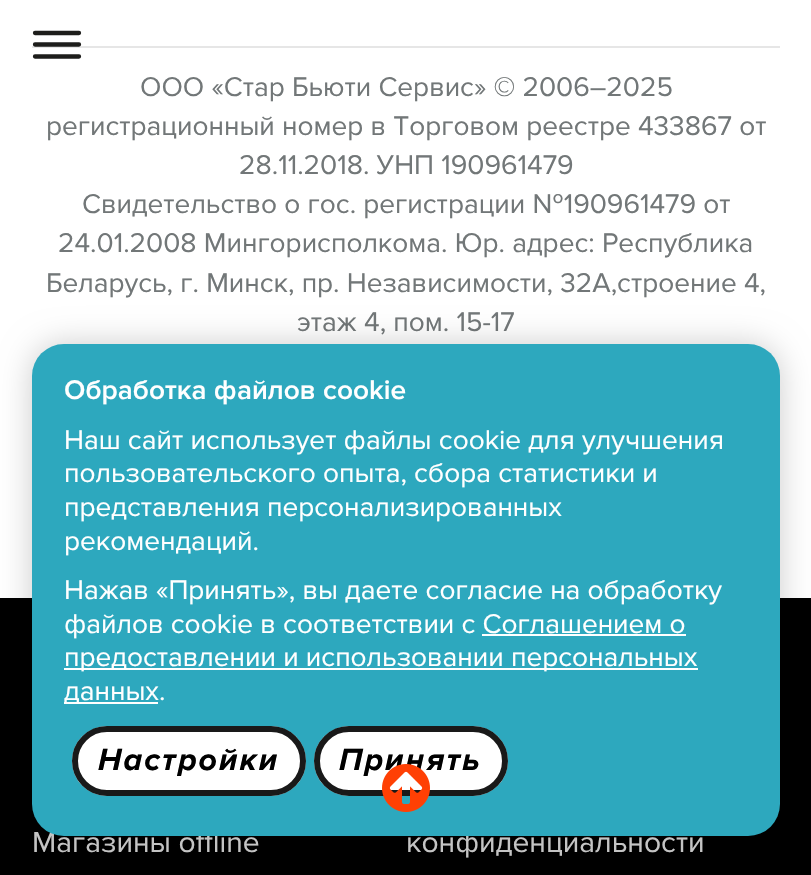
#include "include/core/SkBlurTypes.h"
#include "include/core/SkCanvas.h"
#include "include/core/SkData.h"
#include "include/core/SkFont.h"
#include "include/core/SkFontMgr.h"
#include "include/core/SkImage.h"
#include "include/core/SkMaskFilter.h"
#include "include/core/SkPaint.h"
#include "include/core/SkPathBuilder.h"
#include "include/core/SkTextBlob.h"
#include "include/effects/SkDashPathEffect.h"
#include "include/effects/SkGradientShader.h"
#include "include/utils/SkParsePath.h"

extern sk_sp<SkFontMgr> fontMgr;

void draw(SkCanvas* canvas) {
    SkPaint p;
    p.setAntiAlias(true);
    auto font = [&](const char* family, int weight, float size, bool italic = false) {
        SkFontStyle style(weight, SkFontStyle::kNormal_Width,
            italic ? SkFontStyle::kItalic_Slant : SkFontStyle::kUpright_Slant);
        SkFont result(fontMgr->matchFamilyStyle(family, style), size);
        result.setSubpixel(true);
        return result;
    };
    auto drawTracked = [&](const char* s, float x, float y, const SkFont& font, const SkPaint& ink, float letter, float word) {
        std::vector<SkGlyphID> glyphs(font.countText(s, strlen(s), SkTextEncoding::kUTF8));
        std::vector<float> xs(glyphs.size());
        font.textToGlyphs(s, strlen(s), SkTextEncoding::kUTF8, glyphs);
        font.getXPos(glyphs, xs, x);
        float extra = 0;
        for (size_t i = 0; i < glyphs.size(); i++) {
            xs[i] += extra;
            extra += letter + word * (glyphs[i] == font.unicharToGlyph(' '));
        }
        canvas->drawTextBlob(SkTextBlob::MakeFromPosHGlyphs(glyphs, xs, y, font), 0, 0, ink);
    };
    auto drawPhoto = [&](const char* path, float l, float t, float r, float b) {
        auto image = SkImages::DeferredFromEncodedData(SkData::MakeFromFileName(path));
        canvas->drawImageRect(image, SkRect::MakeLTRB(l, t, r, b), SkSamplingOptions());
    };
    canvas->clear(0xFFFFFFFF);
    p.setColor(0xFFE6E6E6);
    canvas->drawRect(SkRect::MakeLTRB(32, 46, 780, 48), p);
    p.setStyle(SkPaint::kStroke_Style);
    p.setStrokeWidth(4.3f);
    p.setStrokeCap(SkPaint::kRound_Cap);
    p.setStrokeJoin(SkPaint::kRound_Join);
    p.setColor(0xFF1D1D1B);
    canvas->drawPath(SkPathBuilder().moveTo(35, 44.5f).lineTo(79, 44.5f).moveTo(35, 33).lineTo(79, 33).moveTo(35, 56.5f).lineTo(79, 56.5f).detach(), p);
    auto font1 = font("Proxima Nova", 400, 28);
    p.setStyle(SkPaint::kFill_Style);
    p.setColor(0xFF727778);
    {
        const struct { const char* s; float x, y; } items[] = {
            {"ООО «Стар Бьюти Сервис» © 2006–2025", 140, 96},
            {"регистрационный номер в Торговом реестре 433867 от", 46, 135},
            {"28.11.2018. УНП 190961479", 239, 174},
            {"Свидетельство о гос. регистрации №190961479 от", 82, 213},
            {"24.01.2008 Мингорисполкома. Юр. адрес: Республика", 58, 252},
            {"Беларусь, г. Минск, пр. Независимости, 32А,строение 4,", 46, 292},
            {"этаж 4, пом. 15-17", 297, 331},
        };
        for (auto [s, x, y] : items) {
            canvas->drawString(s, x, y, font1, p);
        }
    }
    p.setColor(0xFF000000);
    canvas->drawRect(SkRect::MakeLTRB(0, 598, 811, 875), p);
    p.setColor(0x33000000);
    p.setMaskFilter(SkMaskFilter::MakeBlur(kNormal_SkBlurStyle, 16));
    canvas->drawRoundRect(SkRect::MakeLTRB(32, 344, 780, 836), 32, 32, p);
    p.setMaskFilter(nullptr);
    auto font2 = font("Proxima Nova", 400, 30);
    p.setColor(0xFFC4C4C4);
    canvas->drawString("Магазины offline", 32, 852, font2, p);
    canvas->drawString("конфиденциальности", 406, 852, font2, p);
    p.setColor(0xFF2DA8BE);
    canvas->drawRoundRect(SkRect::MakeLTRB(32, 344, 780, 836), 32, 32, p);
    auto font3 = font("Proxima Nova", 600, 28);
    p.setColor(0xFFFFFFFF);
    canvas->drawString("Обработка файлов cookie", 64, 399, font3, p);
    {
        const struct { const char* s; float x, y; } items[] = {
            {"Наш сайт использует файлы cookie для улучшения", 64, 449},
            {"пользовательского опыта, сбора статистики и", 64, 482},
            {"представления персонализированных", 64, 516},
            {"рекомендаций.", 64, 550},
            {"Нажав «Принять», вы даете согласие на обработку", 64, 599},
            {"файлов cookie в соответствии с Соглашением о", 64, 633},
        };
        for (auto [s, x, y] : items) {
            canvas->drawString(s, x, y, font1, p);
        }
    }
    canvas->drawRect(SkRect::MakeLTRB(64, 668, 698, 670), p);
    canvas->drawString("предоставлении и использовании персональных", 64, 666, font1, p);
    canvas->drawRect(SkRect::MakeLTRB(482, 634, 686, 636), p);
    canvas->drawRect(SkRect::MakeLTRB(64, 702, 158, 704), p);
    canvas->drawString("данных.", 64, 700, font1, p);
    canvas->drawRoundRect(SkRect::MakeLTRB(72, 726, 306, 796), 35, 35, p);
    p.setStyle(SkPaint::kStroke_Style);
    p.setStrokeWidth(6);
    p.setStrokeCap(SkPaint::kButt_Cap);
    p.setStrokeJoin(SkPaint::kMiter_Join);
    p.setColor(0xE6000000);
    canvas->drawRoundRect(SkRect::MakeLTRB(75, 729, 303, 793), 32, 32, p);
    auto font4 = font("Proxima Nova", 700, 32, true);
    p.setStyle(SkPaint::kFill_Style);
    p.setColor(0xFF000000);
    drawTracked("Настройки", 98, 770, font4, p, 2, 0);
    p.setColor(0xFFFFFFFF);
    canvas->drawRoundRect(SkRect::MakeLTRB(314, 726, 508, 796), 35, 35, p);
    p.setStyle(SkPaint::kStroke_Style);
    p.setColor(0xE6000000);
    canvas->drawRoundRect(SkRect::MakeLTRB(317, 729, 505, 793), 32, 32, p);
    p.setStyle(SkPaint::kFill_Style);
    p.setColor(0xFF000000);
    drawTracked("Принять", 339, 770, font4, p, 2, 0);
    drawPhoto("media/1.png", 382, 764, 430, 812);
}
